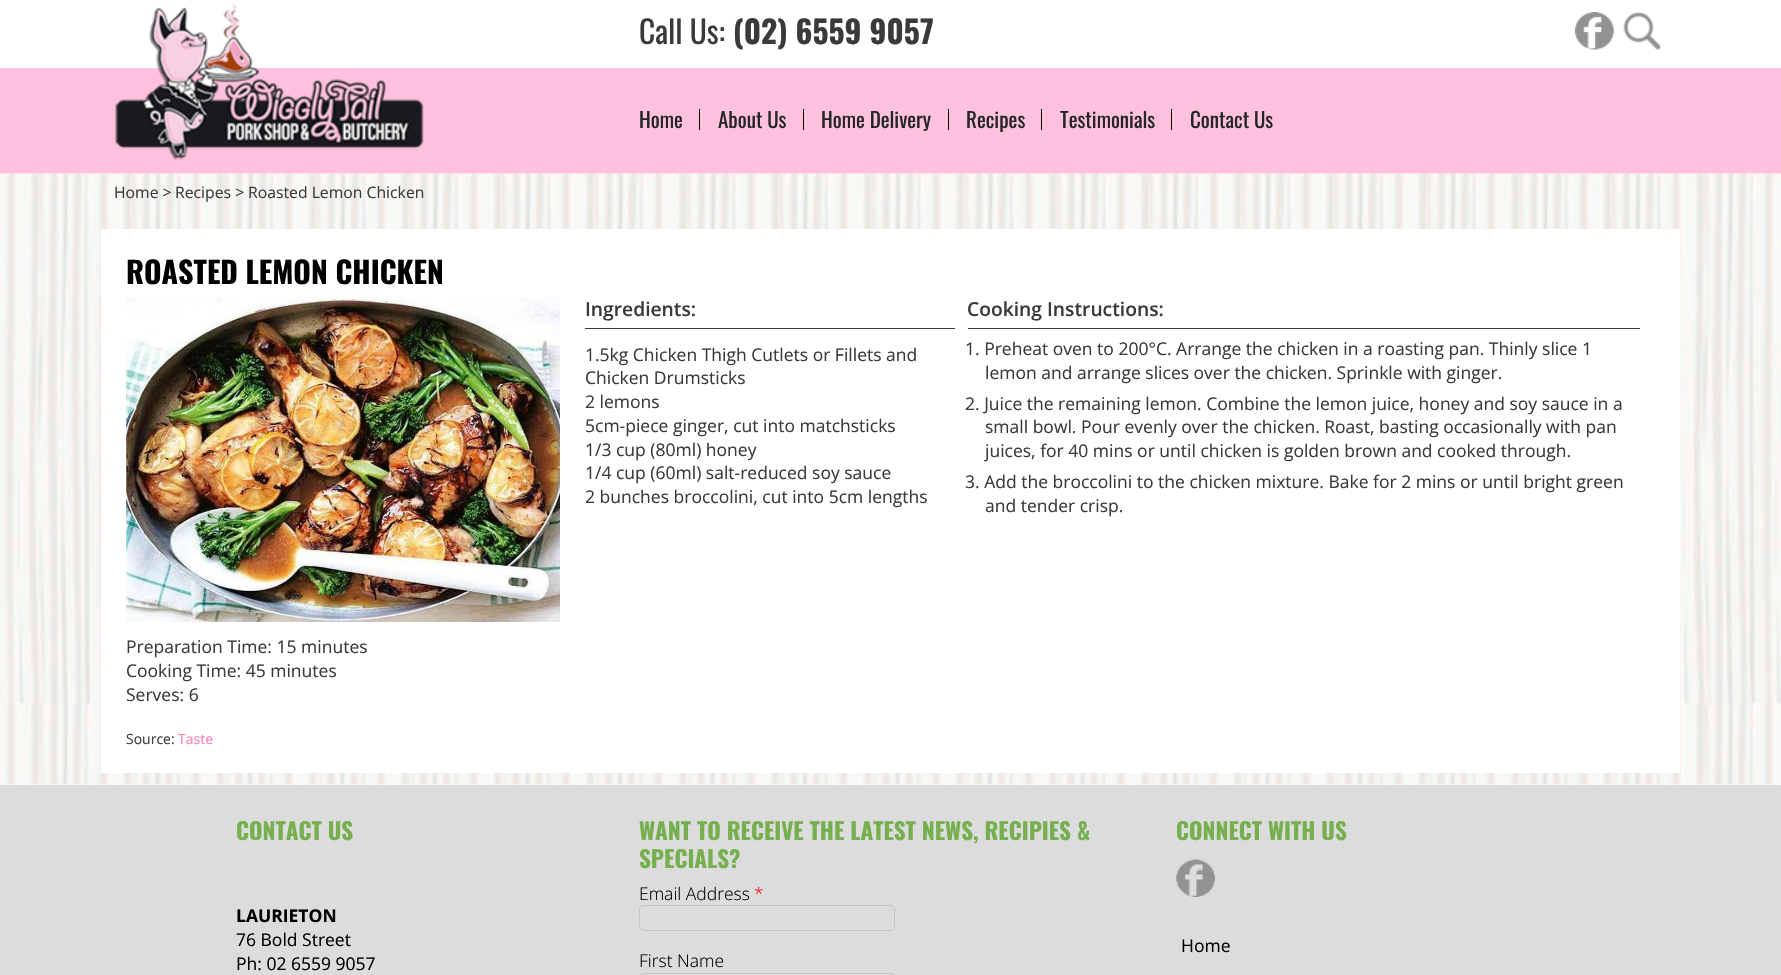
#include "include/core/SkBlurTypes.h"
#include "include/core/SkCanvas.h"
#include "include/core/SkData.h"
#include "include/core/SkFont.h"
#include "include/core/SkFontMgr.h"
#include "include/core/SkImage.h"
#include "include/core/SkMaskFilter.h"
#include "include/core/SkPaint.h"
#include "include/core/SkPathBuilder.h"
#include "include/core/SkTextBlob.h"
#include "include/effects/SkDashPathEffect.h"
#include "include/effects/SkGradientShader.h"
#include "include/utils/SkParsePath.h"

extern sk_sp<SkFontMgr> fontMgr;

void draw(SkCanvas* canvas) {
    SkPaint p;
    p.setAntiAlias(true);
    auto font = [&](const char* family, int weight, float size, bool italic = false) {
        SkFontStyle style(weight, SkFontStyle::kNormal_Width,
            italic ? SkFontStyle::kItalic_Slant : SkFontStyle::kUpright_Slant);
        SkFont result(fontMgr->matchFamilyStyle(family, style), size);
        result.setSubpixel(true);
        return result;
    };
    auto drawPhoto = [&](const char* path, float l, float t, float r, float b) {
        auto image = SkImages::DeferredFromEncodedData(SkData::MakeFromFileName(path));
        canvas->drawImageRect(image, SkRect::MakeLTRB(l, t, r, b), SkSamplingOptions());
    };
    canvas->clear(0xFFFFFFFF);
    p.setColor(0xFFFFC1DE);
    canvas->drawRect(SkRect::MakeLTRB(0, 68, 1781, 174), p);
    drawPhoto("media/1.png", 115, 4, 424, 160);
    auto font1 = font("Oswald", 400, 31.5f);
    p.setColor(0xFF393A3C);
    canvas->drawString("Call Us:", 639, 44, font1, p);
    auto font2 = font("Oswald", 700, 31.5f);
    canvas->drawString("(02) 6559 9057", 733, 44, font2, p);
    drawPhoto("media/2.png", 1575, 12, 1614, 50);
    drawPhoto("media/3.png", 1623, 12, 1661, 50);
    auto font3 = font("Oswald", 400, 21);
    p.setColor(0xFF242527);
    canvas->drawString("Home", 639, 128, font3, p);
    p.setColor(0xFF000000);
    canvas->drawRect(SkRect::MakeLTRB(699, 109, 700, 130), p);
    p.setColor(0xFF242527);
    canvas->drawString("About Us", 718, 128, font3, p);
    p.setColor(0xFF000000);
    canvas->drawRect(SkRect::MakeLTRB(803, 109, 804, 130), p);
    p.setColor(0xFF242527);
    canvas->drawString("Home Delivery", 821, 128, font3, p);
    p.setColor(0xFF000000);
    canvas->drawRect(SkRect::MakeLTRB(948, 109, 949, 130), p);
    p.setColor(0xFF242527);
    canvas->drawString("Recipes", 966, 128, font3, p);
    p.setColor(0xFF000000);
    canvas->drawRect(SkRect::MakeLTRB(1041, 109, 1042, 130), p);
    p.setColor(0xFF242527);
    canvas->drawString("Testimonials", 1060, 128, font3, p);
    p.setColor(0xFF000000);
    canvas->drawRect(SkRect::MakeLTRB(1171, 109, 1172, 130), p);
    p.setColor(0xFF242527);
    canvas->drawString("Contact Us", 1190, 128, font3, p);
    drawPhoto("media/4.png", 0, 173, 1781, 785);
    auto font4 = font("Open Sans", 400, 15.75f);
    p.setColor(0xFF393A3C);
    {
        const struct { const char* s; float x, y; } items[] = {
            {"Home >", 114, 198},
            {"Recipes >", 175, 198},
            {"Roasted Lemon Chicken", 248, 198},
        };
        for (auto [s, x, y] : items) {
            canvas->drawString(s, x, y, font4, p);
        }
    }
    p.setColor(0xFFFFFFFF);
    canvas->drawRect(SkRect::MakeLTRB(101, 229, 1680, 773), p);
    auto font5 = font("Oswald", 700, 30);
    p.setColor(0xFF000000);
    canvas->drawString("ROASTED LEMON CHICKEN", 126, 284, font5, p);
    p.setColor(0xFF393A3C);
    canvas->drawRect(SkRect::MakeLTRB(585, 328, 955, 329), p);
    auto font6 = font("Open Sans", 600, 19.25f);
    canvas->drawString("Ingredients:", 585, 316, font6, p);
    auto font7 = font("Open Sans", 400, 17.5f);
    {
        const struct { const char* s; float x, y; } items[] = {
            {"1.5kg Chicken Thigh Cutlets or Fillets and", 585, 361},
            {"Chicken Drumsticks", 585, 384},
            {"2 lemons", 585, 408},
            {"5cm-piece ginger, cut into matchsticks", 585, 432},
            {"1/3 cup (80ml) honey", 585, 456},
            {"1/4 cup (60ml) salt-reduced soy sauce", 585, 479},
            {"2 bunches broccolini, cut into 5cm lengths", 585, 503},
        };
        for (auto [s, x, y] : items) {
            canvas->drawString(s, x, y, font7, p);
        }
    }
    canvas->drawRect(SkRect::MakeLTRB(968, 328, 1640, 329), p);
    canvas->drawString("Cooking Instructions:", 967, 316, font6, p);
    {
        const struct { const char* s; float x, y; } items[] = {
            {"1. Preheat oven to 200°C. Arrange the chicken in a roasting pan. Thinly slice 1", 965, 355},
            {"lemon and arrange slices over the chicken. Sprinkle with ginger.", 985, 379},
            {"2. Juice the remaining lemon. Combine the lemon juice, honey and soy sauce in a", 965, 410},
            {"small bowl. Pour evenly over the chicken. Roast, basting occasionally with pan", 985, 433},
            {"juices, for 40 mins or until chicken is golden brown and cooked through.", 985, 457},
            {"3. Add the broccolini to the chicken mixture. Bake for 2 mins or until bright green", 965, 488},
            {"and tender crisp.", 985, 512},
        };
        for (auto [s, x, y] : items) {
            canvas->drawString(s, x, y, font7, p);
        }
    }
    drawPhoto("media/5.png", 126, 297, 560, 622);
    {
        const struct { const char* s; float x, y; } items[] = {
            {"Preparation Time: 15 minutes", 126, 653},
            {"Cooking Time: 45 minutes", 126, 677},
            {"Serves: 6", 126, 701},
        };
        for (auto [s, x, y] : items) {
            canvas->drawString(s, x, y, font7, p);
        }
    }
    auto font8 = font("Open Sans", 400, 14);
    canvas->drawString("Source:", 126, 744, font8, p);
    p.setColor(0xFFFC7DB4);
    canvas->drawString("Taste", 178, 744, font8, p);
    p.setColor(0xFFDCDCDC);
    canvas->drawRect(SkRect::MakeLTRB(0, 785, 1781, 975), p);
    auto font9 = font("Oswald", 700, 23.1f);
    p.setColor(0xFF76AF4E);
    canvas->drawString("CONTACT US", 236, 840, font9, p);
    auto font10 = font("Open Sans", 700, 17.5f);
    p.setColor(0xFF000000);
    canvas->drawString("LAURIETON", 236, 922, font10, p);
    canvas->drawString("76 Bold Street", 236, 946, font7, p);
    canvas->drawString("Ph: 02 6559 9057", 236, 970, font7, p);
    p.setColor(0xFF76AF4E);
    canvas->drawString("WANT TO RECEIVE THE LATEST NEWS, RECIPIES &", 639, 840, font9, p);
    canvas->drawString("SPECIALS?", 639, 868, font9, p);
    auto font11 = font("Open Sans", 300, 17.5f);
    p.setColor(0xFF000000);
    canvas->drawString("Email Address", 639, 900, font11, p);
    p.setColor(0xFFFF0000);
    canvas->drawString("*", 754, 900, font11, p);
    p.setStyle(SkPaint::kStroke_Style);
    p.setStrokeWidth(1);
    p.setColor(0xFFC5C5C5);
    canvas->drawRoundRect(SkRect::MakeLTRB(639.5f, 905.5f, 894.5f, 930.5f), 4.5f, 4.5f, p);
    p.setStyle(SkPaint::kFill_Style);
    p.setColor(0xFF000000);
    canvas->drawString("First Name", 639, 967, font11, p);
    p.setStyle(SkPaint::kStroke_Style);
    p.setColor(0xFFC5C5C5);
    canvas->drawRoundRect(SkRect::MakeLTRB(639.5f, 973.5f, 894.5f, 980.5f), 4.5f, 4.5f, p);
    p.setStyle(SkPaint::kFill_Style);
    p.setColor(0xFF76AF4E);
    canvas->drawString("CONNECT WITH US", 1176, 840, font9, p);
    drawPhoto("media/6.png", 1176, 859, 1215, 897);
    p.setColor(0xFF000000);
    canvas->drawString("Home", 1181, 952, font7, p);
}
